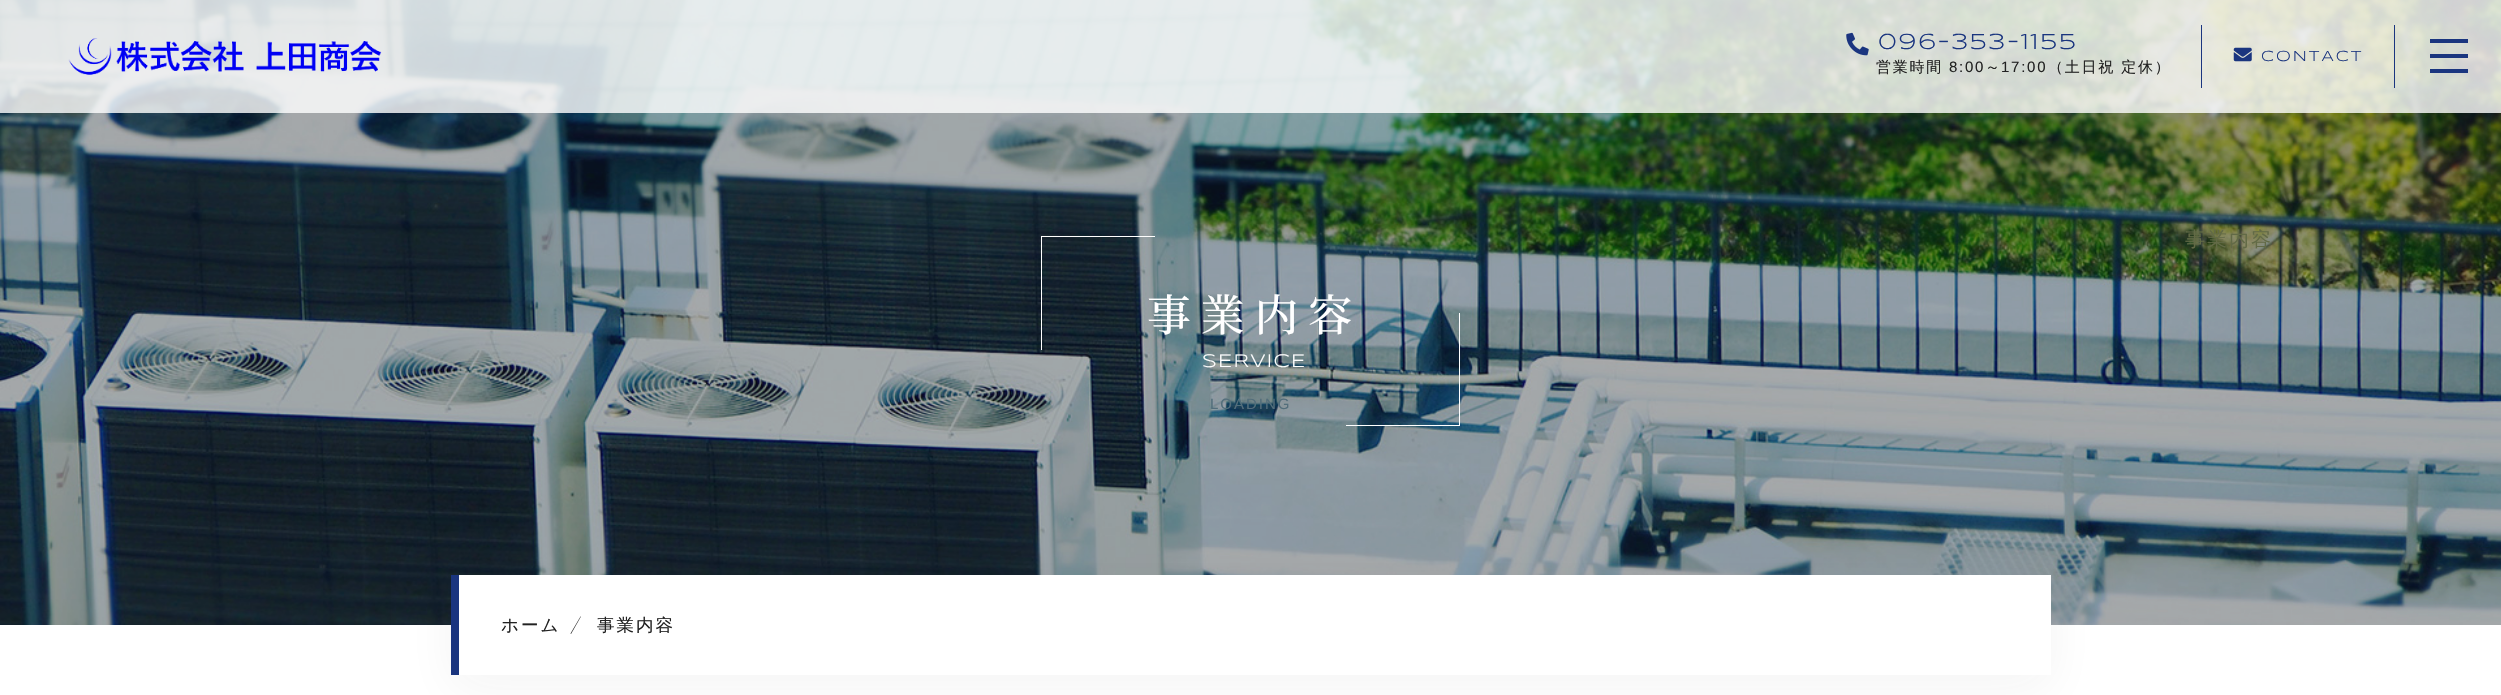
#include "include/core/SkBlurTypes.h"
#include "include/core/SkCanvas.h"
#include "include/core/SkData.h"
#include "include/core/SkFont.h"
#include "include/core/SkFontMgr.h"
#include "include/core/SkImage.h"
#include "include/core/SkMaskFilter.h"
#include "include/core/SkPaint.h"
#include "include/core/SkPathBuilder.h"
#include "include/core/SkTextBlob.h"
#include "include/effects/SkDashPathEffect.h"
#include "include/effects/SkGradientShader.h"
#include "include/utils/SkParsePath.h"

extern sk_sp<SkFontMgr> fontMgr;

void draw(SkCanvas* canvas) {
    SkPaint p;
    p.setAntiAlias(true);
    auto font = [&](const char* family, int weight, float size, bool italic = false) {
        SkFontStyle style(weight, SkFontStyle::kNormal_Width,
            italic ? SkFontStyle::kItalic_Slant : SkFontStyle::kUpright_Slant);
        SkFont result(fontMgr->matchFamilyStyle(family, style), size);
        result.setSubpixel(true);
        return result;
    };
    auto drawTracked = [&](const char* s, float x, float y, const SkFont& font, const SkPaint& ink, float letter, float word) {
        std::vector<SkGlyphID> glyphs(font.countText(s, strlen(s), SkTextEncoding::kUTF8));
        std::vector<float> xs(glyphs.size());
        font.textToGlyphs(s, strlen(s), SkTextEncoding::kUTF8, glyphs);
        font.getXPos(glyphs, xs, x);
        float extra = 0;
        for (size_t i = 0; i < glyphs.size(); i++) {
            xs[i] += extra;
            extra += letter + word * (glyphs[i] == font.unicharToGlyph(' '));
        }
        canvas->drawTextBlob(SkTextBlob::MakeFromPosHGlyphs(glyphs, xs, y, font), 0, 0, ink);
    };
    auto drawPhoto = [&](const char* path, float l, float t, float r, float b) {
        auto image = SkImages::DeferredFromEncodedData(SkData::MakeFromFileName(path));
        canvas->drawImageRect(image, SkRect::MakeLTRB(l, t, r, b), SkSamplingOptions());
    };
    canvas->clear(0xFFFFFFFF);
    drawPhoto("media/4.png", 0, 0, 2501, 625);
    p.setColor(0xCCFFFFFF);
    canvas->drawRect(SkRect::MakeLTRB(0, 0, 2501, 113), p);
    drawPhoto("media/1.png", 68, 38, 382, 75);
    drawPhoto("media/2.png", 1846, 32, 1869, 56);
    auto font1 = font("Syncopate", 400, 22.5f);
    p.setColor(0xFF1A357F);
    drawTracked("096-353-1155", 1878, 49, font1, p, 2, 0);
    auto font2 = font("WenQuanYi Zen Hei", 500, 15);
    p.setColor(0xFF222222);
    drawTracked("営業時間", 1876, 72, font2, p, 1.75f, 0);
    auto font3 = font("Liberation Sans", 400, 15);
    drawTracked("8:00", 1949, 72, font3, p, 1.75f, 0);
    drawTracked("～", 1985, 72, font2, p, 1.75f, 0);
    drawTracked("17:00", 2001, 72, font3, p, 1.75f, 0);
    drawTracked("（土日祝 定休）", 2048, 72, font2, p, 1.75f, 0);
    p.setColor(0xFF1A357F);
    canvas->drawRect(SkRect::MakeLTRB(2201, 25, 2202, 88), p);
    drawPhoto("media/3.png", 2233, 47, 2252, 62);
    auto font4 = font("Syncopate", 400, 15);
    drawTracked("CONTACT", 2261, 61, font4, p, 2, 0);
    {
        const struct { float l, t, r, b; SkColor color; } items[] = {
            {2394, 25, 2395, 88, 0xFF1A357F},
            {2430, 39, 2468, 43, 0xFF1A357F},
            {2430, 54, 2468, 58, 0xFF1A357F},
            {2430, 69, 2468, 73, 0xFF1A357F},
        };
        for (auto [l, t, r, b, color] : items) {
            p.setColor(color);
            canvas->drawRect(SkRect::MakeLTRB(l, t, r, b), p);
        }
    }
    auto font5 = font("WenQuanYi Zen Hei", 500, 20);
    p.setColor(0xFF626A46);
    drawTracked("事業内容", 2185, 246, font5, p, 2, 0);
    p.setColor(0xFFFFFFFF);
    canvas->drawRect(SkRect::MakeLTRB(1041, 236, 1155, 237), p);
    canvas->drawRect(SkRect::MakeLTRB(1041, 236, 1042, 350), p);
    auto font6 = font("Noto Serif JP", 500, 43.75f);
    drawTracked("事業内容", 1147, 331, font6, p, 10, 0);
    canvas->drawRect(SkRect::MakeLTRB(1459, 313, 1460, 426), p);
    canvas->drawRect(SkRect::MakeLTRB(1346, 425, 1460, 426), p);
    auto font7 = font("Syncopate", 400, 18.75f);
    drawTracked("SERVICE", 1202, 367, font7, p, 1.25f, 0);
    p.setColor(0x0D222222);
    p.setMaskFilter(SkMaskFilter::MakeBlur(kNormal_SkBlurStyle, 25));
    canvas->drawRect(SkRect::MakeLTRB(451, 588, 2051, 688), p);
    p.setMaskFilter(nullptr);
    p.setColor(0xFFFFFFFF);
    canvas->drawRect(SkRect::MakeLTRB(459, 575, 2051, 675), p);
    p.setColor(0xFF1A357F);
    canvas->drawRect(SkRect::MakeLTRB(451, 575, 459, 675), p);
    auto font8 = font("WenQuanYi Zen Hei", 500, 17.5f);
    p.setColor(0xFF222222);
    drawTracked("ホーム", 501, 631, font8, p, 2, 0);
    canvas->drawPath(SkPathBuilder().moveTo(570.5f, 633.5f).lineTo(580.5f, 616.5f).lineTo(581, 616.5f).lineTo(571, 634).close().detach(), p);
    drawTracked("事業内容", 597, 631, font8, p, 2, 0);
    p.setColor(0xFF536E7B);
    drawTracked("LOADING", 1210, 409, font3, p, 2, 0);
}
